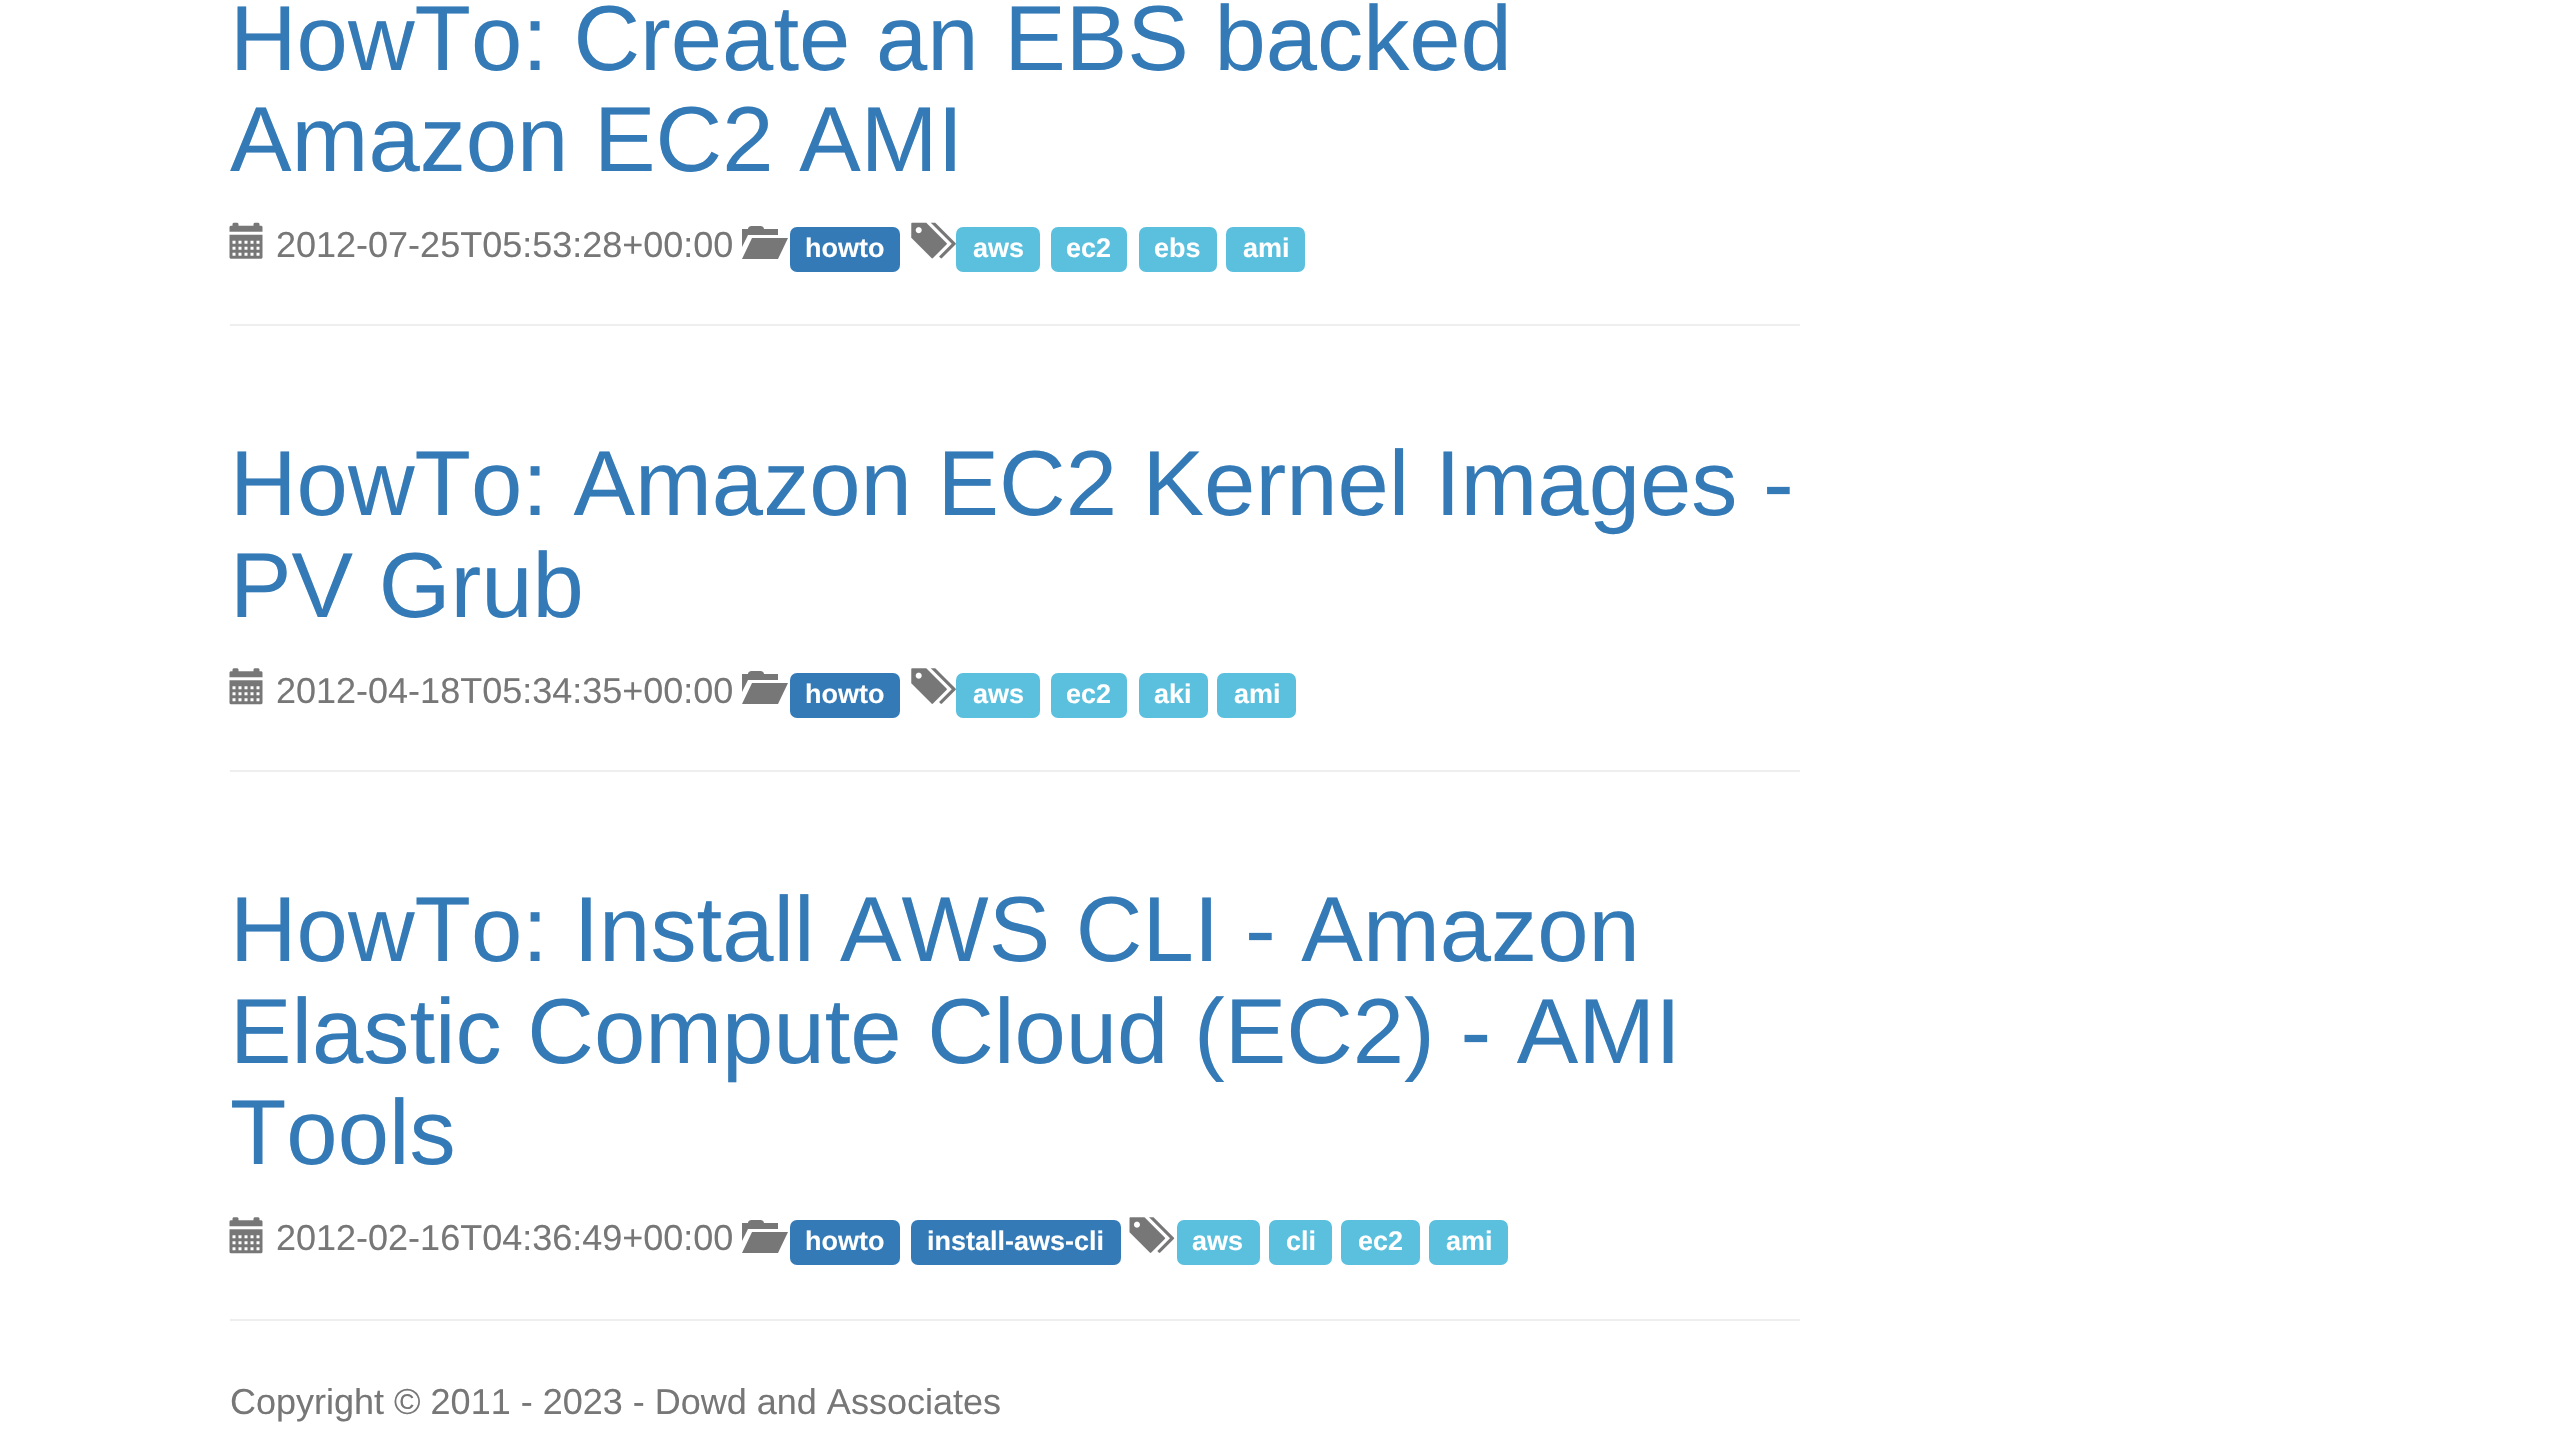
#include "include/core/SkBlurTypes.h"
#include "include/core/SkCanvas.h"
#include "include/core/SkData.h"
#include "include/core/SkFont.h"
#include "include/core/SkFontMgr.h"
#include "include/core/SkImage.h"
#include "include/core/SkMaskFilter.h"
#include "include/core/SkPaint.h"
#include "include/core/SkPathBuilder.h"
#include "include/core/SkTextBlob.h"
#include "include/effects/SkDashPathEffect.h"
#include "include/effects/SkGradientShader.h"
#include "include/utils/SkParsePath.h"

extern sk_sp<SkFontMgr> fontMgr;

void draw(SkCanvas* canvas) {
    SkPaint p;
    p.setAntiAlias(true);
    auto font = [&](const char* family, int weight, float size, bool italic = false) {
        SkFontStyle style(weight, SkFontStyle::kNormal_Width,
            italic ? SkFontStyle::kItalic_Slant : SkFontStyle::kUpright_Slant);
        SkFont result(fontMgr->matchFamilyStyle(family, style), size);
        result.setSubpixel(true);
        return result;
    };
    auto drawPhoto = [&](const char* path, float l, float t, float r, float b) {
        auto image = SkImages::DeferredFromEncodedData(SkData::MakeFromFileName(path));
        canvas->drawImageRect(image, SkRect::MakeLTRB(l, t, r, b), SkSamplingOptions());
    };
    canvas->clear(0xFFFFFFFF);
    p.setColor(0xFFEEEEEE);
    canvas->drawRect(SkRect::MakeLTRB(230, 324, 1800, 326), p);
    auto font1 = font("Liberation Sans", 400, 92.25f);
    p.setColor(0xFF337AB7);
    canvas->drawString("HowTo: Create an EBS backed", 230, 70, font1, p);
    canvas->drawString("Amazon EC2 AMI", 230, 171, font1, p);
    drawPhoto("media/1.png", 229, 222, 263, 259);
    auto font2 = font("Liberation Sans", 400, 36);
    p.setColor(0xFF777777);
    canvas->drawString("2012-07-25T05:53:28+00:00", 276, 257, font2, p);
    canvas->drawPath(SkPathBuilder().moveTo(748, 235).lineTo(742, 247).lineTo(742, 229).lineTo(748, 229).cubicTo(748, 225, 754, 226, 756, 226).cubicTo(758, 226, 764, 225, 764, 229).lineTo(778, 229).lineTo(778, 235).close().moveTo(788, 238).lineTo(778, 259).lineTo(742, 259).lineTo(752, 238).close().detach(), p);
    p.setColor(0xFF337AB7);
    canvas->drawRoundRect(SkRect::MakeLTRB(790, 227, 900, 272), 7, 7, p);
    auto font3 = font("Liberation Sans", 700, 27);
    p.setColor(0xFFFFFFFF);
    canvas->drawString("howto", 805, 257, font3, p);
    drawPhoto("media/2.png", 911, 222, 956, 259);
    p.setColor(0xFF5BC0DE);
    canvas->drawRoundRect(SkRect::MakeLTRB(956, 227, 1040, 272), 7, 7, p);
    p.setColor(0xFFFFFFFF);
    canvas->drawString("aws", 973, 257, font3, p);
    p.setColor(0xFF5BC0DE);
    canvas->drawRoundRect(SkRect::MakeLTRB(1051, 227, 1127, 272), 7, 7, p);
    p.setColor(0xFFFFFFFF);
    canvas->drawString("ec2", 1066, 257, font3, p);
    p.setColor(0xFF5BC0DE);
    canvas->drawRoundRect(SkRect::MakeLTRB(1139, 227, 1217, 272), 7, 7, p);
    p.setColor(0xFFFFFFFF);
    canvas->drawString("ebs", 1154, 257, font3, p);
    p.setColor(0xFF5BC0DE);
    canvas->drawRoundRect(SkRect::MakeLTRB(1226, 227, 1305, 272), 7, 7, p);
    p.setColor(0xFFFFFFFF);
    canvas->drawString("ami", 1243, 257, font3, p);
    p.setColor(0xFFEEEEEE);
    canvas->drawRect(SkRect::MakeLTRB(230, 770, 1800, 772), p);
    p.setColor(0xFF337AB7);
    canvas->drawString("HowTo: Amazon EC2 Kernel Images -", 230, 515, font1, p);
    canvas->drawString("PV Grub", 230, 617, font1, p);
    drawPhoto("media/3.png", 229, 668, 263, 705);
    p.setColor(0xFF777777);
    canvas->drawString("2012-04-18T05:34:35+00:00", 276, 703, font2, p);
    canvas->drawPath(SkPathBuilder().moveTo(748, 680).lineTo(742, 692).lineTo(742, 674).lineTo(748, 674).cubicTo(748, 670, 754, 671, 756, 671).cubicTo(758, 671, 764, 670, 764, 674).lineTo(778, 674).lineTo(778, 680).close().moveTo(788, 683).lineTo(778, 704).lineTo(742, 704).lineTo(752, 683).close().detach(), p);
    p.setColor(0xFF337AB7);
    canvas->drawRoundRect(SkRect::MakeLTRB(790, 673, 900, 718), 7, 7, p);
    p.setColor(0xFFFFFFFF);
    canvas->drawString("howto", 805, 703, font3, p);
    drawPhoto("media/4.png", 911, 668, 956, 704);
    p.setColor(0xFF5BC0DE);
    canvas->drawRoundRect(SkRect::MakeLTRB(956, 673, 1040, 718), 7, 7, p);
    p.setColor(0xFFFFFFFF);
    canvas->drawString("aws", 973, 703, font3, p);
    p.setColor(0xFF5BC0DE);
    canvas->drawRoundRect(SkRect::MakeLTRB(1051, 673, 1127, 718), 7, 7, p);
    p.setColor(0xFFFFFFFF);
    canvas->drawString("ec2", 1066, 703, font3, p);
    p.setColor(0xFF5BC0DE);
    canvas->drawRoundRect(SkRect::MakeLTRB(1139, 673, 1208, 718), 7, 7, p);
    p.setColor(0xFFFFFFFF);
    canvas->drawString("aki", 1154, 703, font3, p);
    p.setColor(0xFF5BC0DE);
    canvas->drawRoundRect(SkRect::MakeLTRB(1217, 673, 1296, 718), 7, 7, p);
    p.setColor(0xFFFFFFFF);
    canvas->drawString("ami", 1234, 703, font3, p);
    p.setColor(0xFFEEEEEE);
    canvas->drawRect(SkRect::MakeLTRB(230, 1319, 1800, 1321), p);
    p.setColor(0xFF337AB7);
    {
        const struct { const char* s; float x, y; } items[] = {
            {"HowTo: Install AWS CLI - Amazon", 230, 961},
            {"Elastic Compute Cloud (EC2) - AMI", 230, 1063},
            {"Tools", 230, 1164},
        };
        for (auto [s, x, y] : items) {
            canvas->drawString(s, x, y, font1, p);
        }
    }
    drawPhoto("media/3.png", 229, 1217, 263, 1254);
    p.setColor(0xFF777777);
    canvas->drawString("2012-02-16T04:36:49+00:00", 276, 1250, font2, p);
    canvas->drawPath(SkPathBuilder().moveTo(748, 1229).lineTo(742, 1241).lineTo(742, 1223).lineTo(748, 1223).cubicTo(748, 1219, 754, 1220, 756, 1220).cubicTo(758, 1220, 764, 1219, 764, 1223).lineTo(778, 1223).lineTo(778, 1229).close().moveTo(788, 1232).lineTo(778, 1253).lineTo(742, 1253).lineTo(752, 1232).close().detach(), p);
    p.setColor(0xFF337AB7);
    canvas->drawRoundRect(SkRect::MakeLTRB(790, 1220, 900, 1265), 7, 7, p);
    p.setColor(0xFFFFFFFF);
    canvas->drawString("howto", 805, 1250, font3, p);
    p.setColor(0xFF337AB7);
    canvas->drawRoundRect(SkRect::MakeLTRB(911, 1220, 1121, 1265), 7, 7, p);
    p.setColor(0xFFFFFFFF);
    canvas->drawString("install-aws-cli", 927, 1250, font3, p);
    drawPhoto("media/5.png", 1129, 1217, 1175, 1253);
    p.setColor(0xFF5BC0DE);
    canvas->drawRoundRect(SkRect::MakeLTRB(1177, 1220, 1260, 1265), 7, 7, p);
    p.setColor(0xFFFFFFFF);
    canvas->drawString("aws", 1192, 1250, font3, p);
    p.setColor(0xFF5BC0DE);
    canvas->drawRoundRect(SkRect::MakeLTRB(1269, 1220, 1332, 1265), 7, 7, p);
    p.setColor(0xFFFFFFFF);
    canvas->drawString("cli", 1286, 1250, font3, p);
    p.setColor(0xFF5BC0DE);
    canvas->drawRoundRect(SkRect::MakeLTRB(1341, 1220, 1420, 1265), 7, 7, p);
    p.setColor(0xFFFFFFFF);
    canvas->drawString("ec2", 1358, 1250, font3, p);
    p.setColor(0xFF5BC0DE);
    canvas->drawRoundRect(SkRect::MakeLTRB(1429, 1220, 1508, 1265), 7, 7, p);
    p.setColor(0xFFFFFFFF);
    canvas->drawString("ami", 1446, 1250, font3, p);
    p.setColor(0xFF777777);
    canvas->drawString("Copyright © 2011 - 2023 - Dowd and Associates", 230, 1414, font2, p);
}
